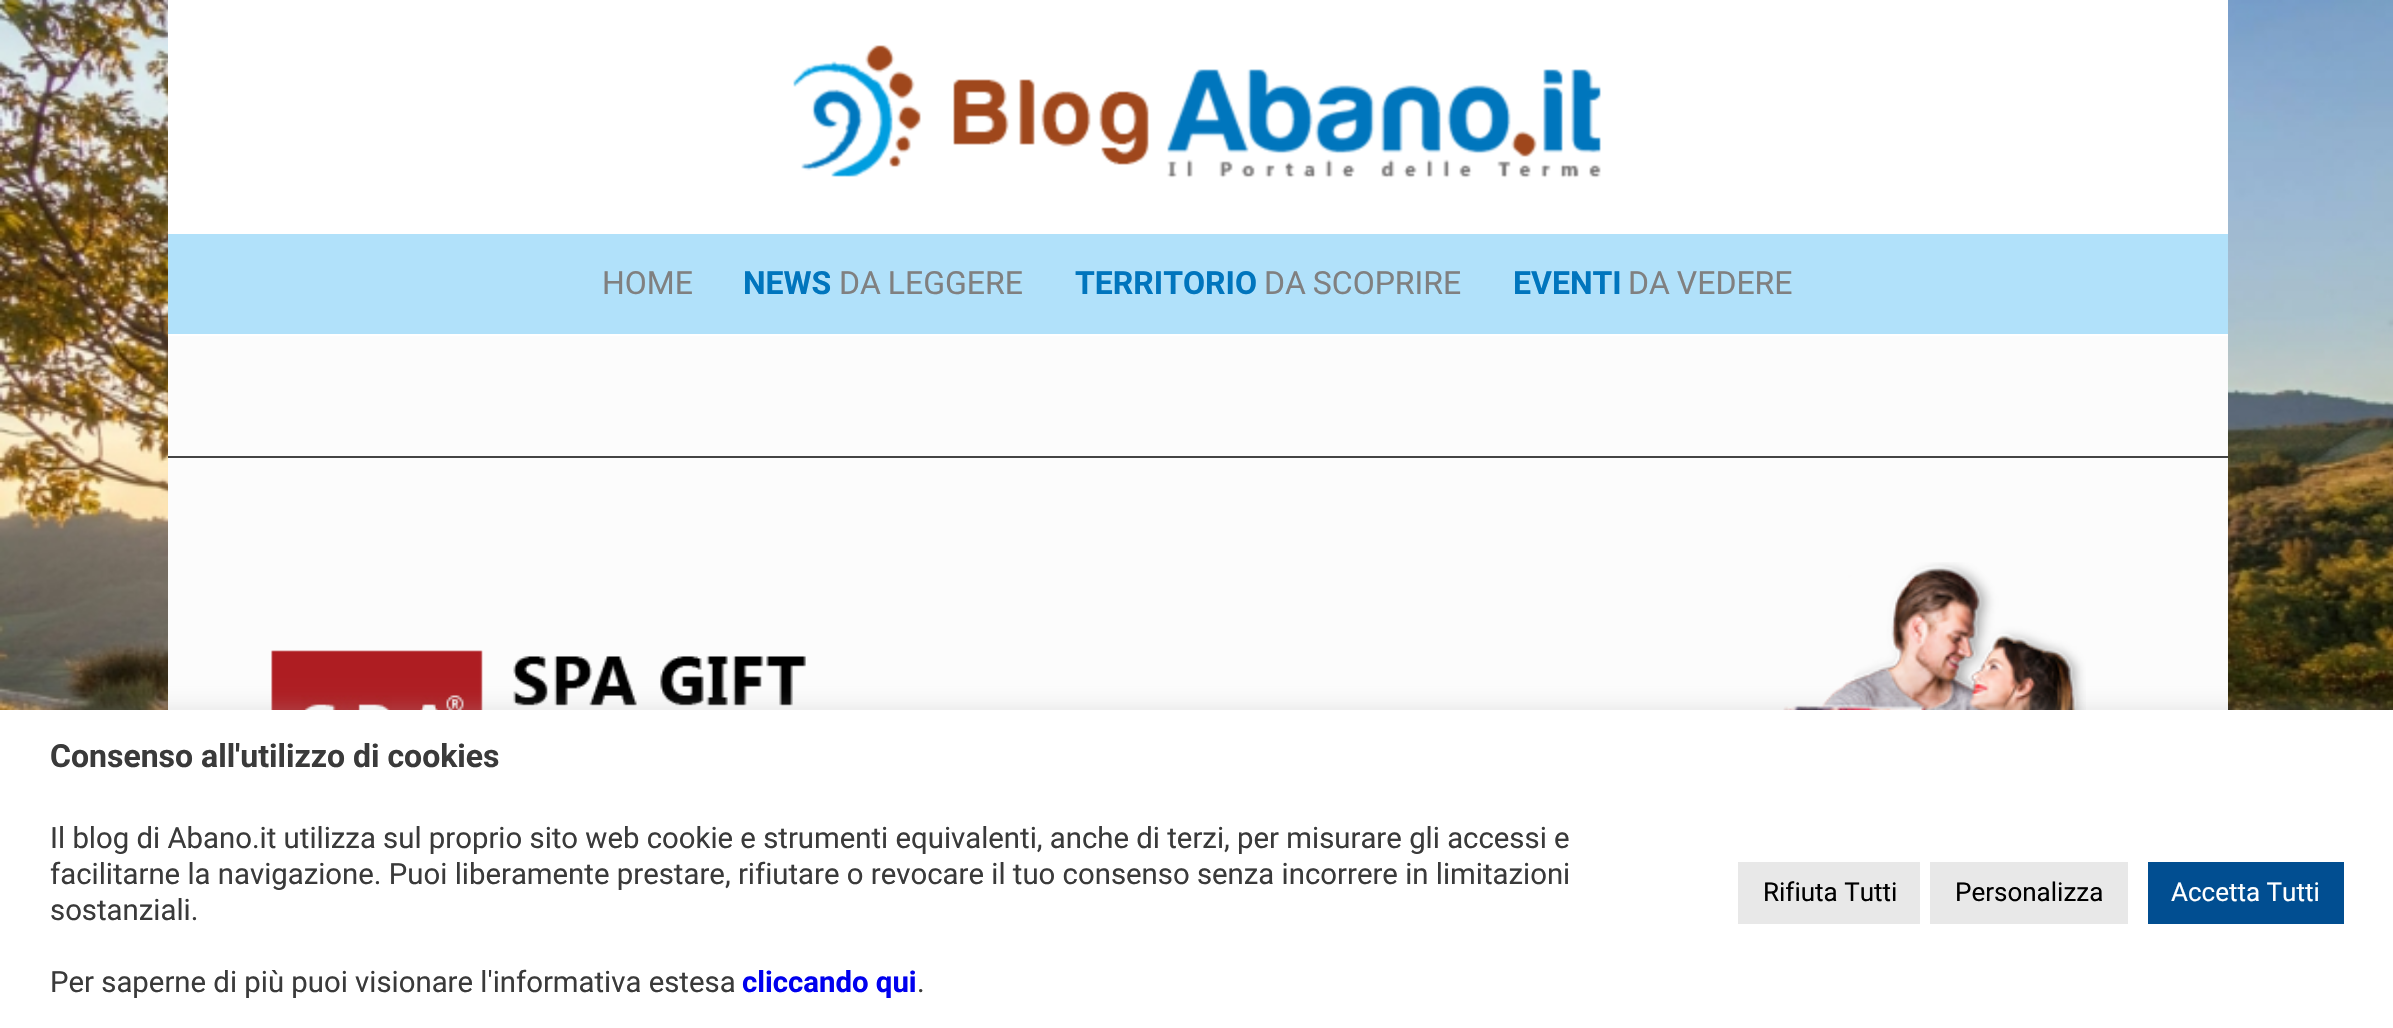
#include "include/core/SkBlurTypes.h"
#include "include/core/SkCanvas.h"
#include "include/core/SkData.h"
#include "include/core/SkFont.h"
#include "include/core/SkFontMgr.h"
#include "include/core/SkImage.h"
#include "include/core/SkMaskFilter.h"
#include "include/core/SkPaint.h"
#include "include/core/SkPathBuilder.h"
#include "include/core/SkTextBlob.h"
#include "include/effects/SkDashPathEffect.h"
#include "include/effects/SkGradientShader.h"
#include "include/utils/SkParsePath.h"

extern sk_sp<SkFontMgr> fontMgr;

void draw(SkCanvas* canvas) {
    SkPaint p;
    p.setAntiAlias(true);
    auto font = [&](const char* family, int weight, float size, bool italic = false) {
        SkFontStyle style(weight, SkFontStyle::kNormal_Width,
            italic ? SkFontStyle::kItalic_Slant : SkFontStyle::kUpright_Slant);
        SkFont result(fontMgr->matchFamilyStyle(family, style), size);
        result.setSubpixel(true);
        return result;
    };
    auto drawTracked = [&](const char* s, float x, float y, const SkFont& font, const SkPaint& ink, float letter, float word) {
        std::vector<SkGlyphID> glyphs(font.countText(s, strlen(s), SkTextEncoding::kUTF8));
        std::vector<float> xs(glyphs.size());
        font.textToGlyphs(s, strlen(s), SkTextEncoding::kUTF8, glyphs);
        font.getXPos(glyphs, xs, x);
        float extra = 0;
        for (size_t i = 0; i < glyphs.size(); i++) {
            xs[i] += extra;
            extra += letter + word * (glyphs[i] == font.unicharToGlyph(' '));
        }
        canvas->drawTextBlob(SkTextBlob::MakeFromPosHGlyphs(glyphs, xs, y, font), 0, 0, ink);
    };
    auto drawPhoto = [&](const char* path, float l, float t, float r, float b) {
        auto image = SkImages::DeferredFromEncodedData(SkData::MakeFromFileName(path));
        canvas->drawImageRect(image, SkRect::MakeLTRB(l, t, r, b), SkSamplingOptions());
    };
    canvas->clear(0xFFFFFFFF);
    drawPhoto("media/1.png", 0, 0, 2393, 710);
    {
        const struct { float l, t, r, b; SkColor color; } items[] = {
            {168, 0, 2228, 456, 0xFFFCFCFC},
            {168, 458, 2228, 710, 0xFFFCFCFC},
            {168, 456, 2228, 458, 0xFF444444},
        };
        for (auto [l, t, r, b, color] : items) {
            p.setColor(color);
            canvas->drawRect(SkRect::MakeLTRB(l, t, r, b), p);
        }
    }
    drawPhoto("media/2.png", 271, 562, 2086, 710);
    p.setColor(0xF2FFFFFF);
    canvas->drawRect(SkRect::MakeLTRB(168, 0, 2228, 336), p);
    drawPhoto("media/3.png", 793, 45, 1601, 178);
    p.setColor(0xFFB1E1FA);
    canvas->drawRect(SkRect::MakeLTRB(168, 234, 2228, 334), p);
    auto font1 = font("Roboto", 400, 32);
    p.setColor(0xFF808080);
    canvas->drawString("HOME", 602, 294, font1, p);
    auto font2 = font("Roboto", 700, 32);
    p.setColor(0xFF0075BD);
    canvas->drawString("NEWS", 743, 294, font2, p);
    p.setColor(0xFF808080);
    drawTracked("DA LEGGERE", 839, 294, font1, p, 0, -1);
    p.setColor(0xFF0075BD);
    canvas->drawString("TERRITORIO", 1075, 294, font2, p);
    p.setColor(0xFF808080);
    drawTracked("DA SCOPRIRE", 1264, 294, font1, p, 0, -1);
    p.setColor(0xFF0075BD);
    canvas->drawString("EVENTI", 1513, 294, font2, p);
    p.setColor(0xFF808080);
    drawTracked("DA VEDERE", 1628, 294, font1, p, 0, -1);
    p.setColor(0x4DACABAB);
    p.setMaskFilter(SkMaskFilter::MakeBlur(kNormal_SkBlurStyle, 10));
    canvas->drawRect(SkRect::MakeLTRB(0, 708, 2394, 1026), p);
    p.setMaskFilter(nullptr);
    p.setColor(0xFFFFFFFF);
    canvas->drawRect(SkRect::MakeLTRB(0, 710, 2393, 1028), p);
    p.setColor(0xFF3A3A3A);
    canvas->drawString("Consenso all'utilizzo di cookies", 50, 767, font2, p);
    auto font3 = font("Roboto", 400, 29.33f);
    {
        const struct { const char* s; float x, y; } items[] = {
            {"Il blog di Abano.it utilizza sul proprio sito web cookie e strumenti equivalenti, anche di terzi, per misurare gli accessi e", 50, 848},
            {"facilitarne la navigazione. Puoi liberamente prestare, rifiutare o revocare il tuo consenso senza incorrere in limitazioni", 50, 884},
            {"sostanziali.", 50, 920},
            {"Per saperne di più puoi visionare l'informativa estesa", 50, 992},
        };
        for (auto [s, x, y] : items) {
            canvas->drawString(s, x, y, font3, p);
        }
    }
    auto font4 = font("Roboto", 700, 29.33f);
    p.setColor(0xFF0000EE);
    canvas->drawString("cliccando qui", 742, 992, font4, p);
    p.setColor(0xFF3A3A3A);
    canvas->drawString(".", 917, 992, font3, p);
    p.setColor(0xFFE8E8E8);
    canvas->drawRect(SkRect::MakeLTRB(1738, 862, 1920, 924), p);
    auto font5 = font("Roboto", 400, 26);
    p.setColor(0xFF000000);
    canvas->drawString("Rifiuta Tutti", 1763, 901, font5, p);
    p.setColor(0xFFE8E8E8);
    canvas->drawRect(SkRect::MakeLTRB(1930, 862, 2128, 924), p);
    p.setColor(0xFF000000);
    canvas->drawString("Personalizza", 1955, 901, font5, p);
    p.setColor(0xFF014E91);
    canvas->drawRect(SkRect::MakeLTRB(2148, 862, 2344, 924), p);
    p.setColor(0xFFFFFFFF);
    canvas->drawString("Accetta Tutti", 2171, 901, font5, p);
}
